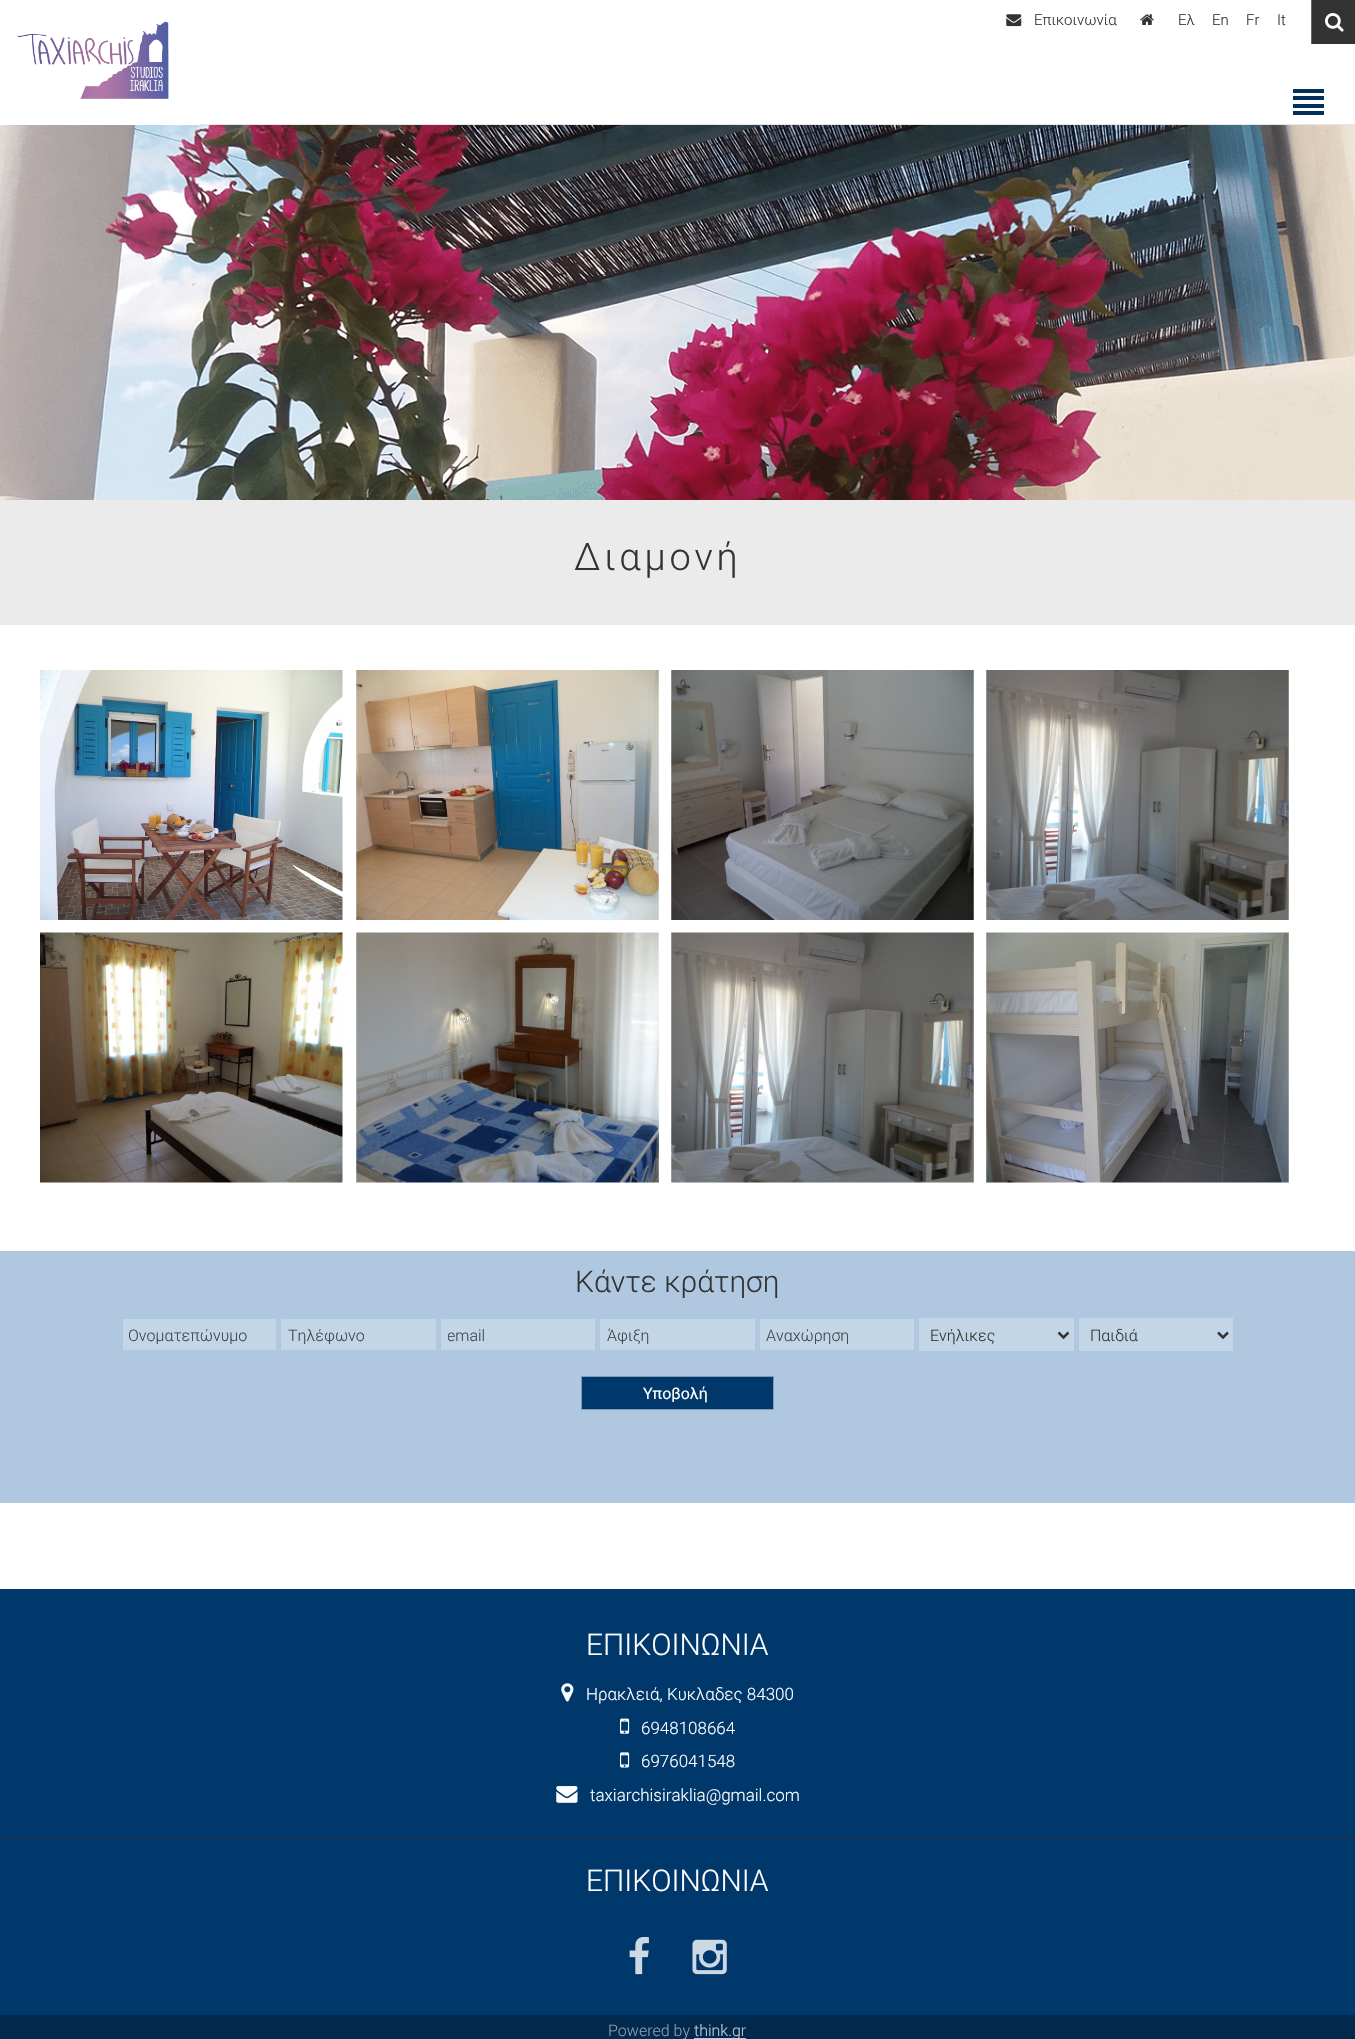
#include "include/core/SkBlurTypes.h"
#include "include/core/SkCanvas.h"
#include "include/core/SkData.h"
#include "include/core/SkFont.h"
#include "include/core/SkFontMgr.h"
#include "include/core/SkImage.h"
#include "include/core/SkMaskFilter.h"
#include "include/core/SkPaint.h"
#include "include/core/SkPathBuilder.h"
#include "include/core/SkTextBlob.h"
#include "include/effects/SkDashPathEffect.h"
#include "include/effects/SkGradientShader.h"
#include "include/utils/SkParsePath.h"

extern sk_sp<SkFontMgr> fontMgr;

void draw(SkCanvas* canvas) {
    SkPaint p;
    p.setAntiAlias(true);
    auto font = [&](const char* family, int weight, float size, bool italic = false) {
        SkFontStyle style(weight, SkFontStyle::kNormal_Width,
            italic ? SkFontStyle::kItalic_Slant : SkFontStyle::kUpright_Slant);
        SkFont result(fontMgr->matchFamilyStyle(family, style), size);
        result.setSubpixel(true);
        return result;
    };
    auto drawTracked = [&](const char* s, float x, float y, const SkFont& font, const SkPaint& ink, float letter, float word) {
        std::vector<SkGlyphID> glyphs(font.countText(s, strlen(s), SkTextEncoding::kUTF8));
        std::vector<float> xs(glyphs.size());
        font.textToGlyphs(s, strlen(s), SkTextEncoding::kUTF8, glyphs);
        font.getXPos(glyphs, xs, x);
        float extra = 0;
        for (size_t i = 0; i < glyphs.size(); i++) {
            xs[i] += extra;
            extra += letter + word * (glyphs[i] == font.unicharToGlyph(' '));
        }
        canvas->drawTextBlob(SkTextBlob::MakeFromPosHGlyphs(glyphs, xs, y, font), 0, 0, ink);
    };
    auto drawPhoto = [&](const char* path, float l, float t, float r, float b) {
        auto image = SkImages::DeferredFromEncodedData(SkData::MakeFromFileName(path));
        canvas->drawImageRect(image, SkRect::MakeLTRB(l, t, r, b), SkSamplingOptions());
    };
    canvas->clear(0xFFFFFFFF);
    drawPhoto("media/1.png", 1006, 14, 1022, 27);
    auto font1 = font("Roboto", 300, 15);
    p.setColor(0xFF333333);
    canvas->drawString("Επικοινωνία", 1034, 25, font1, p);
    drawPhoto("media/2.png", 1140, 14, 1154, 25);
    {
        const struct { const char* s; float x, y; } items[] = {
            {"Ελ", 1178, 25},
            {"En", 1212, 25},
            {"Fr", 1246, 25},
            {"It", 1277, 25},
        };
        for (auto [s, x, y] : items) {
            canvas->drawString(s, x, y, font1, p);
        }
    }
    canvas->drawRect(SkRect::MakeLTRB(1312, 0, 1355, 44), p);
    p.setColor(0xFF666666);
    canvas->drawRect(SkRect::MakeLTRB(1311, 0, 1312, 44), p);
    drawPhoto("media/3.png", 1325, 13, 1344, 32);
    drawPhoto("media/4.png", 17, 21, 169, 99);
    {
        const struct { float l, t, r, b; SkColor color; } items[] = {
            {200, 124, 1355, 125, 0xFFE6E6E6},
            {1293, 89, 1324, 93, 0xFF01305B},
            {1293, 96, 1324, 100, 0xFF01305B},
            {1293, 104, 1324, 108, 0xFF01305B},
            {1293, 111, 1324, 115, 0xFF01305B},
        };
        for (auto [l, t, r, b, color] : items) {
            p.setColor(color);
            canvas->drawRect(SkRect::MakeLTRB(l, t, r, b), p);
        }
    }
    drawPhoto("media/5.png", 0, 125, 1355, 500);
    p.setColor(0xFFEBEBEB);
    canvas->drawRect(SkRect::MakeLTRB(0, 500, 1355, 625), p);
    auto font2 = font("Roboto", 300, 38);
    p.setColor(0xFF333333);
    drawTracked("Διαμονή", 574, 570, font2, p, 3.75f, 0);
    drawPhoto("media/6.png", 40, 670, 343, 920);
    drawPhoto("media/7.png", 356, 670, 659, 920);
    drawPhoto("media/8.png", 671, 670, 974, 920);
    drawPhoto("media/9.png", 986, 670, 1289, 920);
    drawPhoto("media/10.png", 40, 932, 343, 1183);
    drawPhoto("media/11.png", 356, 932, 659, 1183);
    drawPhoto("media/12.png", 671, 932, 974, 1183);
    drawPhoto("media/13.png", 986, 932, 1289, 1183);
    p.setColor(0xFFAFC8E0);
    canvas->drawRect(SkRect::MakeLTRB(0, 1251, 1355, 1503), p);
    auto font3 = font("Roboto", 300, 30);
    p.setColor(0xFF333333);
    canvas->drawString("Κάντε κράτηση", 575, 1292, font3, p);
    p.setColor(0xFFC3D6E8);
    canvas->drawRect(SkRect::MakeLTRB(123, 1319, 276, 1350), p);
    canvas->save();
    canvas->clipRect(SkRect::MakeLTRB(129, 1325, 270, 1344));
    auto font4 = font("Roboto", 300, 16);
    p.setColor(0xFF414549);
    canvas->drawString("Ονοματεπώνυμο", 128, 1341, font4, p);
    canvas->restore();
    p.setColor(0xFFC3D6E8);
    canvas->drawRect(SkRect::MakeLTRB(281, 1319, 436, 1350), p);
    canvas->save();
    canvas->clipRect(SkRect::MakeLTRB(288, 1325, 430, 1344));
    p.setColor(0xFF414549);
    canvas->drawString("Τηλέφωνο", 288, 1341, font4, p);
    canvas->restore();
    p.setColor(0xFFC3D6E8);
    canvas->drawRect(SkRect::MakeLTRB(441, 1319, 595, 1350), p);
    canvas->save();
    canvas->clipRect(SkRect::MakeLTRB(448, 1325, 589, 1344));
    p.setColor(0xFF414549);
    canvas->drawString("email", 447, 1341, font4, p);
    canvas->restore();
    p.setColor(0xFFC3D6E8);
    canvas->drawRect(SkRect::MakeLTRB(600, 1319, 755, 1350), p);
    canvas->save();
    canvas->clipRect(SkRect::MakeLTRB(606, 1325, 749, 1344));
    p.setColor(0xFF414549);
    canvas->drawString("Άφιξη", 607, 1341, font4, p);
    canvas->restore();
    p.setColor(0xFFC3D6E8);
    canvas->drawRect(SkRect::MakeLTRB(760, 1319, 914, 1350), p);
    canvas->save();
    canvas->clipRect(SkRect::MakeLTRB(766, 1325, 908, 1344));
    p.setColor(0xFF414549);
    canvas->drawString("Αναχώρηση", 766, 1341, font4, p);
    canvas->restore();
    p.setColor(0xFFC3D6E8);
    canvas->drawRect(SkRect::MakeLTRB(919, 1318, 1074, 1351), p);
    p.setStyle(SkPaint::kStroke_Style);
    p.setStrokeWidth(2.5f);
    p.setColor(0xFF333333);
    canvas->drawPath(SkPathBuilder().moveTo(1058.5f, 1332.5f).lineTo(1063.5f, 1337.5f).lineTo(1068.5f, 1332.5f).detach(), p);
    p.setStyle(SkPaint::kFill_Style);
    canvas->drawString("Ενήλικες", 930, 1341, font4, p);
    p.setColor(0xFFC3D6E8);
    canvas->drawRect(SkRect::MakeLTRB(1079, 1318, 1233, 1351), p);
    p.setStyle(SkPaint::kStroke_Style);
    p.setColor(0xFF333333);
    canvas->drawPath(SkPathBuilder().moveTo(1218, 1332.5f).lineTo(1223, 1337.5f).lineTo(1228, 1332.5f).detach(), p);
    p.setStyle(SkPaint::kFill_Style);
    canvas->drawString("Παιδιά", 1090, 1341, font4, p);
    p.setColor(0xFF00386C);
    canvas->drawRect(SkRect::MakeLTRB(581.5f, 1376.5f, 773.5f, 1409.5f), p);
    p.setStyle(SkPaint::kStroke_Style);
    p.setStrokeWidth(1);
    p.setColor(0xFF809CB6);
    canvas->drawRect(SkRect::MakeLTRB(581.5f, 1376.5f, 773.5f, 1409.5f), p);
    auto font5 = font("Roboto", 400, 16);
    p.setStyle(SkPaint::kFill_Style);
    p.setColor(0xFFFFFFFF);
    canvas->drawString("Υποβολή", 643, 1399, font5, p);
    p.setColor(0xFF00386C);
    canvas->drawRect(SkRect::MakeLTRB(0, 1589, 1355, 2015), p);
    p.setColor(0xFF1C3354);
    canvas->drawRect(SkRect::MakeLTRB(0, 1836, 1355, 1837), p);
    p.setColor(0xFFFFFFFF);
    canvas->drawString("ΕΠΙΚΟΙΝΩΝΙΑ", 586, 1655, font3, p);
    drawPhoto("media/14.png", 561, 1683, 574, 1702);
    auto font6 = font("Roboto", 300, 17);
    canvas->drawString("Ηρακλειά, Κυκλαδες 84300", 586, 1700, font6, p);
    drawPhoto("media/15.png", 620, 1718, 630, 1734);
    canvas->drawString("6948108664", 641, 1734, font6, p);
    drawPhoto("media/16.png", 620, 1752, 630, 1768);
    canvas->drawString("6976041548", 641, 1767, font6, p);
    drawPhoto("media/17.png", 556, 1786, 578, 1803);
    canvas->drawString("taxiarchisiraklia@gmail.com", 590, 1801, font6, p);
    p.setColor(0xFF1C3354);
    canvas->drawRect(SkRect::MakeLTRB(0, 1838, 1355, 1839), p);
    p.setColor(0xFFFFFFFF);
    canvas->drawString("ΕΠΙΚΟΙΝΩΝΙΑ", 586, 1891, font3, p);
    drawPhoto("media/18.png", 629, 1937, 649, 1975);
    drawPhoto("media/19.png", 692, 1939, 727, 1975);
    p.setColor(0xFF01294E);
    canvas->drawRect(SkRect::MakeLTRB(0, 2015, 1355, 2039), p);
    p.setColor(0xFF8D9FAF);
    canvas->drawString("Powered by", 608, 2036, font4, p);
    p.setColor(0xFFC0CAD3);
    canvas->drawRect(SkRect::MakeLTRB(694, 2038, 746, 2039), p);
    p.setColor(0xFFC1CBD4);
    canvas->drawString("think.gr", 694, 2036, font4, p);
}
